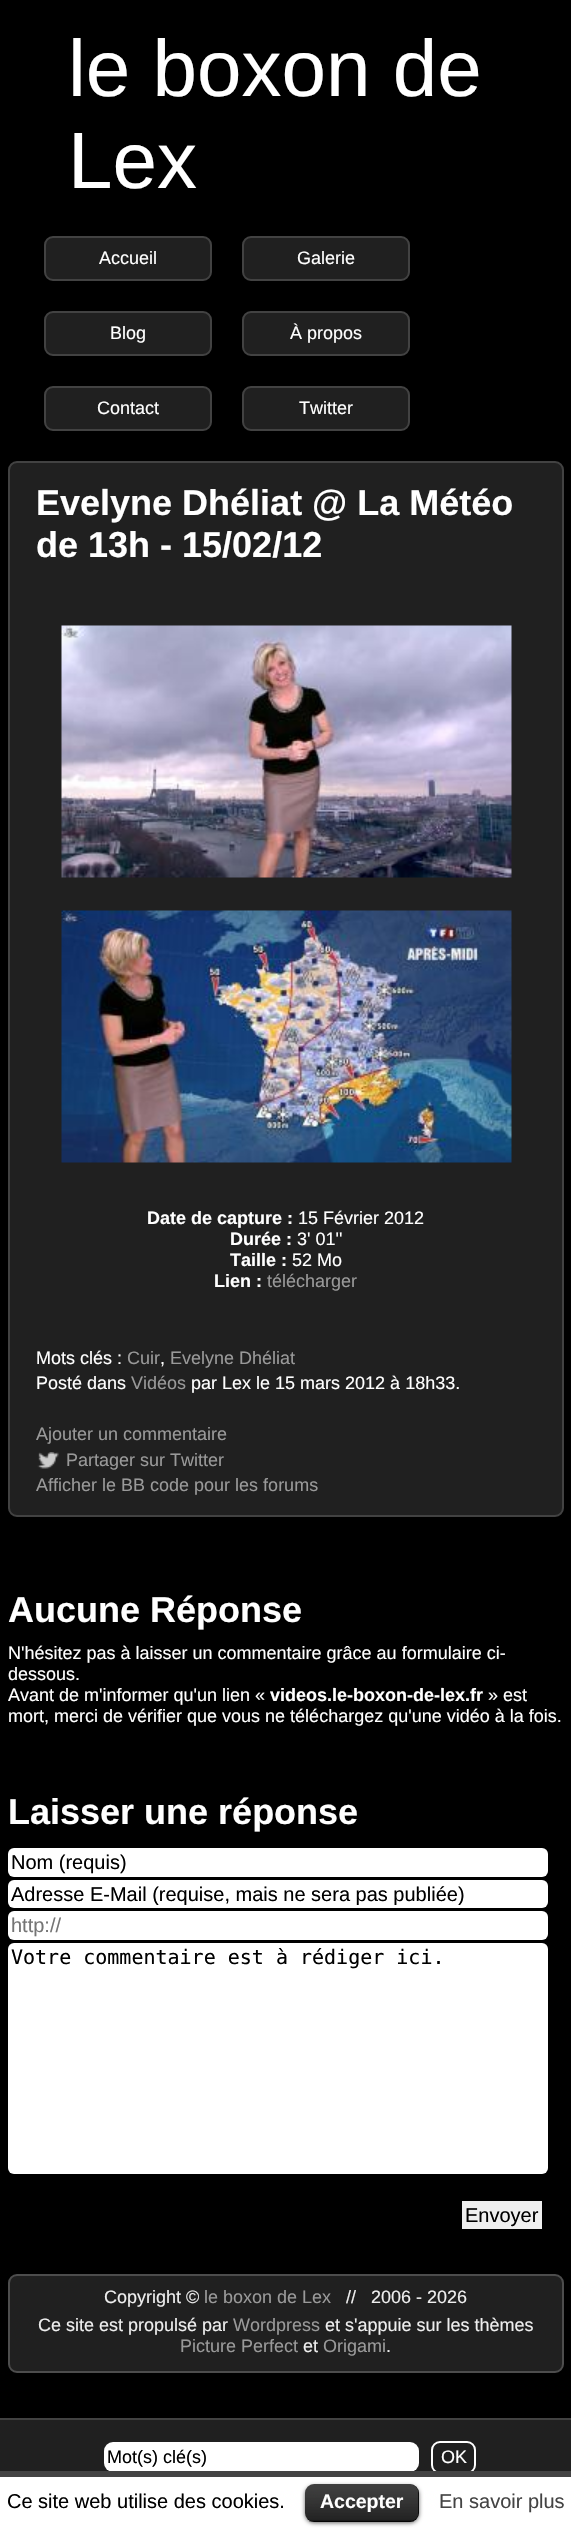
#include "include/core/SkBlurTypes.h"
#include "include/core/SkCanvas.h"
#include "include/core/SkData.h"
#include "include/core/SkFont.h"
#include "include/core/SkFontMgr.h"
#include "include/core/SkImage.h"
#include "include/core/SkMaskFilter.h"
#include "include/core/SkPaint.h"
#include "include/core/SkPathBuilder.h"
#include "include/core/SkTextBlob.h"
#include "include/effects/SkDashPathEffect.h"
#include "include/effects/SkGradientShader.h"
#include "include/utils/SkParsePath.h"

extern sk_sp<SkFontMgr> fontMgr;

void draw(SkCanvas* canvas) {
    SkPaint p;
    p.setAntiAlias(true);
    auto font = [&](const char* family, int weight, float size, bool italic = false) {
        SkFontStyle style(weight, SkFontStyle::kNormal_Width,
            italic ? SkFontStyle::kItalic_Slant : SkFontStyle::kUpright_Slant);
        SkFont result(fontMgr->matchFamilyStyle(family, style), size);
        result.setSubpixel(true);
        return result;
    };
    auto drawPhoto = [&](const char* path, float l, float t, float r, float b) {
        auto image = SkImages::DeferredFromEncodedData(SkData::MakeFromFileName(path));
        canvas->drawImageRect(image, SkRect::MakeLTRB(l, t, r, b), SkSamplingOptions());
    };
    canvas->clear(0xFF000000);
    auto font1 = font("Liberation Sans", 400, 80);
    p.setColor(0xFFFFFFFF);
    canvas->drawString("le boxon de", 68, 96, font1, p);
    canvas->drawString("Lex", 68, 188, font1, p);
    p.setColor(0xFF202020);
    canvas->drawRoundRect(SkRect::MakeLTRB(45, 237, 211, 280), 8, 8, p);
    p.setStyle(SkPaint::kStroke_Style);
    p.setStrokeWidth(2);
    p.setColor(0xFF424242);
    canvas->drawRoundRect(SkRect::MakeLTRB(45, 237, 211, 280), 8, 8, p);
    auto font2 = font("Liberation Sans", 400, 18);
    p.setStyle(SkPaint::kFill_Style);
    p.setColor(0xFFFFFFFF);
    canvas->drawString("Accueil", 99, 264, font2, p);
    p.setColor(0xFF202020);
    canvas->drawRoundRect(SkRect::MakeLTRB(243, 237, 409, 280), 8, 8, p);
    p.setStyle(SkPaint::kStroke_Style);
    p.setColor(0xFF424242);
    canvas->drawRoundRect(SkRect::MakeLTRB(243, 237, 409, 280), 8, 8, p);
    p.setStyle(SkPaint::kFill_Style);
    p.setColor(0xFFFFFFFF);
    canvas->drawString("Galerie", 297, 264, font2, p);
    p.setColor(0xFF202020);
    canvas->drawRoundRect(SkRect::MakeLTRB(45, 312, 211, 355), 8, 8, p);
    p.setStyle(SkPaint::kStroke_Style);
    p.setColor(0xFF424242);
    canvas->drawRoundRect(SkRect::MakeLTRB(45, 312, 211, 355), 8, 8, p);
    p.setStyle(SkPaint::kFill_Style);
    p.setColor(0xFFFFFFFF);
    canvas->drawString("Blog", 110, 339, font2, p);
    p.setColor(0xFF202020);
    canvas->drawRoundRect(SkRect::MakeLTRB(243, 312, 409, 355), 8, 8, p);
    p.setStyle(SkPaint::kStroke_Style);
    p.setColor(0xFF424242);
    canvas->drawRoundRect(SkRect::MakeLTRB(243, 312, 409, 355), 8, 8, p);
    p.setStyle(SkPaint::kFill_Style);
    p.setColor(0xFFFFFFFF);
    canvas->drawString("À propos", 290, 339, font2, p);
    p.setColor(0xFF202020);
    canvas->drawRoundRect(SkRect::MakeLTRB(45, 387, 211, 430), 8, 8, p);
    p.setStyle(SkPaint::kStroke_Style);
    p.setColor(0xFF424242);
    canvas->drawRoundRect(SkRect::MakeLTRB(45, 387, 211, 430), 8, 8, p);
    p.setStyle(SkPaint::kFill_Style);
    p.setColor(0xFFFFFFFF);
    canvas->drawString("Contact", 97, 414, font2, p);
    p.setColor(0xFF202020);
    canvas->drawRoundRect(SkRect::MakeLTRB(243, 387, 409, 430), 8, 8, p);
    p.setStyle(SkPaint::kStroke_Style);
    p.setColor(0xFF424242);
    canvas->drawRoundRect(SkRect::MakeLTRB(243, 387, 409, 430), 8, 8, p);
    p.setStyle(SkPaint::kFill_Style);
    p.setColor(0xFFFFFFFF);
    canvas->drawString("Twitter", 299, 414, font2, p);
    p.setColor(0xFF202020);
    canvas->drawRoundRect(SkRect::MakeLTRB(9, 462, 563, 1516), 8, 8, p);
    p.setStyle(SkPaint::kStroke_Style);
    p.setColor(0xFF424242);
    canvas->drawRoundRect(SkRect::MakeLTRB(9, 462, 563, 1516), 8, 8, p);
    auto font3 = font("Liberation Sans", 700, 36);
    p.setStyle(SkPaint::kFill_Style);
    p.setColor(0xFFFFFFFF);
    canvas->drawString("Evelyne Dhéliat @ La Météo", 36, 515, font3, p);
    canvas->drawString("de 13h - 15/02/12", 36, 557, font3, p);
    drawPhoto("media/1.png", 61, 625, 512, 878);
    drawPhoto("media/2.png", 61, 910, 512, 1163);
    auto font4 = font("Liberation Sans", 700, 18);
    canvas->drawString("Date de capture :", 147, 1224, font4, p);
    canvas->drawString("15 Février 2012", 298, 1224, font2, p);
    canvas->drawString("Durée :", 230, 1245, font4, p);
    canvas->drawString("3' 01''", 297, 1245, font2, p);
    canvas->drawString("Taille :", 230, 1266, font4, p);
    canvas->drawString("52 Mo", 292, 1266, font2, p);
    canvas->drawString("Lien :", 214, 1287, font4, p);
    p.setColor(0xFF999999);
    canvas->drawString("télécharger", 267, 1287, font2, p);
    p.setColor(0xFFFFFFFF);
    canvas->drawString("Mots clés :", 36, 1364, font2, p);
    p.setColor(0xFF999999);
    canvas->drawString("Cuir", 127, 1364, font2, p);
    p.setColor(0xFFFFFFFF);
    canvas->drawString(",", 160, 1364, font2, p);
    p.setColor(0xFF999999);
    canvas->drawString("Evelyne Dhéliat", 170, 1364, font2, p);
    p.setColor(0xFFFFFFFF);
    canvas->drawString("Posté dans", 36, 1389, font2, p);
    p.setColor(0xFF999999);
    canvas->drawString("Vidéos", 131, 1389, font2, p);
    p.setColor(0xFFFFFFFF);
    canvas->drawString("par Lex le 15 mars 2012 à 18h33.", 191, 1389, font2, p);
    p.setColor(0xFF999999);
    canvas->drawString("Ajouter un commentaire", 36, 1440, font2, p);
    drawPhoto("media/3.png", 37, 1452, 59, 1469);
    canvas->drawString("Partager sur Twitter", 66, 1466, font2, p);
    canvas->drawString("Afficher le BB code pour les forums", 36, 1491, font2, p);
    p.setColor(0xFFFFFFFF);
    canvas->drawString("Aucune Réponse", 8, 1622, font3, p);
    {
        const struct { const char* s; float x, y; } items[] = {
            {"N'hésitez pas à laisser un commentaire grâce au formulaire ci-", 8, 1659},
            {"dessous.", 8, 1680},
            {"Avant de m'informer qu'un lien «", 8, 1701},
        };
        for (auto [s, x, y] : items) {
            canvas->drawString(s, x, y, font2, p);
        }
    }
    canvas->drawString("videos.le-boxon-de-lex.fr", 270, 1701, font4, p);
    canvas->drawString("» est", 488, 1701, font2, p);
    canvas->drawString("mort, merci de vérifier que vous ne téléchargez qu'une vidéo à la fois.", 8, 1722, font2, p);
    canvas->drawString("Laisser une réponse", 8, 1824, font3, p);
    canvas->drawRoundRect(SkRect::MakeLTRB(8, 1848, 548, 1877), 6, 6, p);
    auto font5 = font("Liberation Sans", 400, 20);
    p.setColor(0xFF000000);
    canvas->drawString("Nom (requis)", 11, 1869, font5, p);
    p.setColor(0xFFFFFFFF);
    canvas->drawRoundRect(SkRect::MakeLTRB(8, 1880, 548, 1908), 6, 6, p);
    canvas->save();
    canvas->clipRect(SkRect::MakeLTRB(11, 1883, 545, 1905));
    p.setColor(0xFF000000);
    canvas->drawString("Adresse E-Mail (requise, mais ne sera pas publiée)", 11, 1901, font5, p);
    canvas->restore();
    p.setColor(0xFFFFFFFF);
    canvas->drawRoundRect(SkRect::MakeLTRB(8, 1911, 548, 1940), 6, 6, p);
    p.setColor(0xFF757575);
    canvas->drawString("http://", 11, 1932, font5, p);
    p.setColor(0xFFFFFFFF);
    canvas->drawRoundRect(SkRect::MakeLTRB(8, 1943, 548, 2174), 6, 6, p);
    auto font6 = font("DejaVu Sans Mono", 400, 20);
    p.setColor(0xFF000000);
    canvas->drawString("Votre commentaire est à rédiger ici.", 11, 1964, font6, p);
    p.setColor(0xFFEFEFEF);
    canvas->drawRect(SkRect::MakeLTRB(462, 2201, 542, 2229), p);
    p.setColor(0xFF000000);
    canvas->drawString("Envoyer", 465, 2222, font5, p);
    p.setColor(0xFF202020);
    canvas->drawRoundRect(SkRect::MakeLTRB(9, 2275, 563, 2372), 8, 8, p);
    p.setStyle(SkPaint::kStroke_Style);
    p.setColor(0xFF4D4D4D);
    canvas->drawRoundRect(SkRect::MakeLTRB(9, 2275, 563, 2372), 8, 8, p);
    p.setStyle(SkPaint::kFill_Style);
    p.setColor(0xFFEEEEEE);
    canvas->drawString("Copyright ©", 104, 2303, font2, p);
    p.setColor(0xFF999999);
    canvas->drawString("le boxon de Lex", 204, 2303, font2, p);
    p.setColor(0xFFEEEEEE);
    canvas->drawString("//   2006 - 2026", 346, 2303, font2, p);
    canvas->drawString("Ce site est propulsé par", 38, 2331, font2, p);
    p.setColor(0xFF999999);
    canvas->drawString("Wordpress", 233, 2331, font2, p);
    p.setColor(0xFFEEEEEE);
    canvas->drawString("et s'appuie sur les thèmes", 325, 2331, font2, p);
    p.setColor(0xFF999999);
    canvas->drawString("Picture Perfect", 180, 2352, font2, p);
    p.setColor(0xFFEEEEEE);
    canvas->drawString("et", 303, 2352, font2, p);
    p.setColor(0xFF999999);
    canvas->drawString("Origami", 323, 2352, font2, p);
    p.setColor(0xFFEEEEEE);
    canvas->drawString(".", 386, 2352, font2, p);
    p.setColor(0xFF202020);
    canvas->drawRect(SkRect::MakeLTRB(0, 2420, 571, 2471), p);
    p.setColor(0xFF424242);
    canvas->drawRect(SkRect::MakeLTRB(0, 2418, 571, 2420), p);
    p.setColor(0xFFFFFFFF);
    canvas->drawRoundRect(SkRect::MakeLTRB(104, 2442, 419, 2472), 9, 9, p);
    p.setColor(0xFF000000);
    canvas->drawString("Mot(s) clé(s)", 107, 2463, font2, p);
    p.setStyle(SkPaint::kStroke_Style);
    p.setColor(0xFFFFFFFF);
    canvas->drawRoundRect(SkRect::MakeLTRB(432, 2442, 475, 2473), 8, 8, p);
    p.setStyle(SkPaint::kFill_Style);
    canvas->drawString("OK", 441, 2463, font2, p);
    canvas->drawRect(SkRect::MakeLTRB(0, 2477, 571, 2528), p);
    p.setColor(0xFF444444);
    canvas->drawRect(SkRect::MakeLTRB(0, 2471, 571, 2477), p);
    p.setColor(0xFF000000);
    canvas->drawString("Ce site web utilise des cookies.", 7, 2508, font5, p);
    p.setColor(0x99000000);
    p.setMaskFilter(SkMaskFilter::MakeBlur(kNormal_SkBlurStyle, 2));
    canvas->drawRoundRect(SkRect::MakeLTRB(305, 2486, 419, 2523), 9, 9, p);
    p.setMaskFilter(nullptr);
    p.setColor(0xFF000000);
    canvas->drawRoundRect(SkRect::MakeLTRB(305, 2484, 419, 2522), 9, 9, p);
    drawPhoto("media/4.png", 305, 2484, 419, 2522);
    p.setColor(0x40000000);
    canvas->drawRect(SkRect::MakeLTRB(309, 2520, 414, 2522), p);
    auto font7 = font("Liberation Sans", 700, 19.5f);
    p.setColor(0xFFFFFFFF);
    canvas->drawString("Accepter", 320, 2508, font7, p);
    p.setColor(0xFF444444);
    canvas->drawString("En savoir plus", 439, 2508, font5, p);
}
